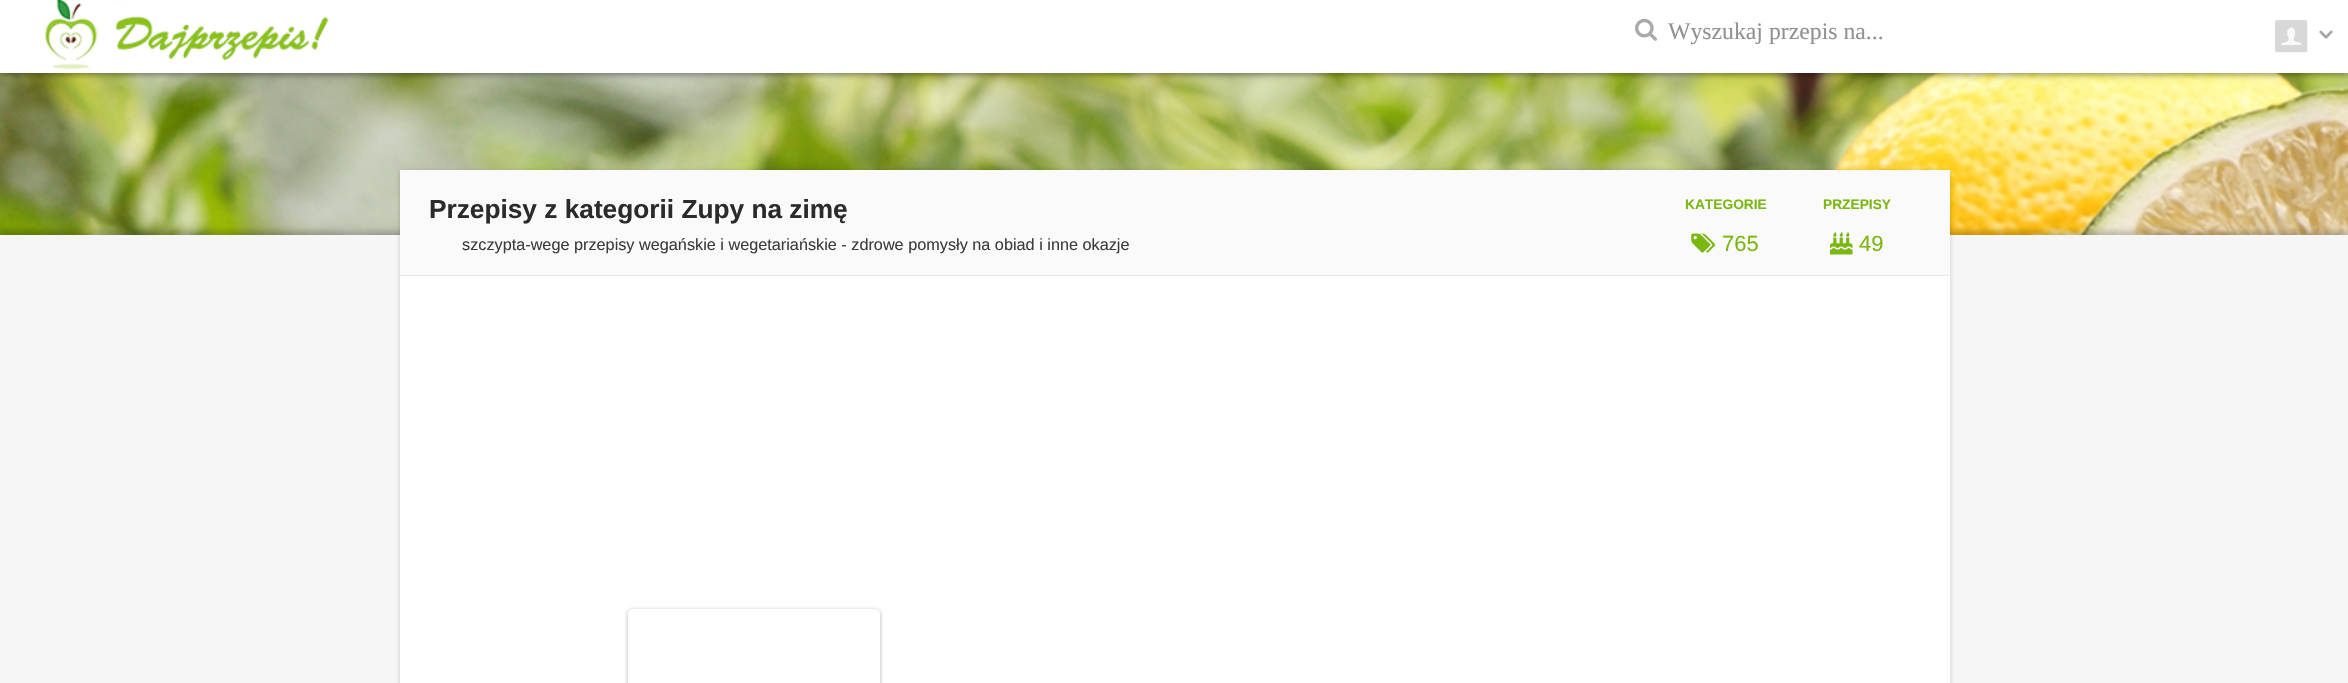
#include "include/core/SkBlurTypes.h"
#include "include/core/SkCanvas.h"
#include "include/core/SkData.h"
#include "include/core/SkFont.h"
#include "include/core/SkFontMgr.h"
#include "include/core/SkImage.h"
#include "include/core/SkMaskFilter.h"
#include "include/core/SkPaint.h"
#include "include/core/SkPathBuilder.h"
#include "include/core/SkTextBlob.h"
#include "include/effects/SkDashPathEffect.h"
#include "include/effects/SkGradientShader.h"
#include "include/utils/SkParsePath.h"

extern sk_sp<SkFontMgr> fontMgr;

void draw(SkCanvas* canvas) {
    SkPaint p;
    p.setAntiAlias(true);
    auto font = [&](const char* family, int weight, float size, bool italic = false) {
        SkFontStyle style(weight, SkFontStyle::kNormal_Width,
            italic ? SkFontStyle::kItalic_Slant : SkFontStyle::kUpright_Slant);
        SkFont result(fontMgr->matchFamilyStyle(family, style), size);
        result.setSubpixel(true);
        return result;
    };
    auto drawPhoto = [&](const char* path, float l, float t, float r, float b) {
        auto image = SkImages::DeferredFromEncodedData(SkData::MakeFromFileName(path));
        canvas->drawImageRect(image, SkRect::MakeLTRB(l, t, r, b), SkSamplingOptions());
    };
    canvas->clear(0xFFFFFFFF);
    drawPhoto("media/4.png", 0, 73, 2348, 235);
    p.setColor(0x66000000);
    p.setMaskFilter(SkMaskFilter::MakeBlur(kNormal_SkBlurStyle, 3));
    canvas->drawRect(SkRect::MakeLTRB(0, 3, 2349, 75), p);
    p.setMaskFilter(nullptr);
    p.setColor(0xFFFFFFFF);
    canvas->drawRect(SkRect::MakeLTRB(0, 0, 2348, 73), p);
    drawPhoto("media/1.png", 44, 0, 329, 70);
    drawPhoto("media/2.png", 1635, 18, 1657, 41);
    auto font1 = font("Liberation Serif", 400, 23.75f);
    p.setColor(0xFF919191);
    canvas->drawString("Wyszukaj przepis na...", 1668, 39, font1, p);
    drawPhoto("media/3.png", 2275, 20, 2308, 53);
    auto font2 = font("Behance", 400, 20);
    p.setColor(0xFFA4A4A4);
    canvas->drawString("{", 2316, 43, font2, p);
    p.setColor(0x33000000);
    p.setMaskFilter(SkMaskFilter::MakeBlur(kNormal_SkBlurStyle, 3));
    canvas->drawRect(SkRect::MakeLTRB(0, 231, 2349, 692), p);
    p.setMaskFilter(nullptr);
    p.setColor(0xFFF5F6F5);
    canvas->drawRect(SkRect::MakeLTRB(0, 235, 2348, 683), p);
    p.setColor(0x33000000);
    p.setMaskFilter(SkMaskFilter::MakeBlur(kNormal_SkBlurStyle, 2));
    canvas->drawRoundRect(SkRect::MakeLTRB(400, 171, 1950, 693), 4, 4, p);
    p.setMaskFilter(nullptr);
    {
        const struct { float l, t, r, b; SkColor color; } items[] = {
            {400, 276, 1950, 683, 0xFFFFFFFF},
            {400, 170, 1950, 275, 0xFFFAFAFA},
            {400, 275, 1950, 276, 0xFFE8E8E8},
        };
        for (auto [l, t, r, b, color] : items) {
            p.setColor(color);
            canvas->drawRect(SkRect::MakeLTRB(l, t, r, b), p);
        }
    }
    auto font3 = font("Liberation Sans", 700, 26.25f);
    p.setColor(0xFF2B2B2B);
    canvas->drawString("Przepisy z kategorii Zupy na zimę", 429, 218, font3, p);
    auto font4 = font("Liberation Sans", 400, 16.25f);
    p.setColor(0xFF3C3C3C);
    canvas->drawString("szczypta-wege przepisy wegańskie i wegetariańskie - zdrowe pomysły na obiad i inne okazje", 462, 250, font4, p);
    auto font5 = font("Liberation Sans", 700, 13.75f);
    p.setColor(0xFF7AB710);
    canvas->drawString("KATEGORIE", 1685, 209, font5, p);
    drawPhoto("media/5.png", 1691, 233, 1716, 253);
    auto font6 = font("Liberation Sans", 400, 22);
    canvas->drawString("765", 1722, 251, font6, p);
    canvas->drawString("PRZEPISY", 1823, 209, font5, p);
    drawPhoto("media/6.png", 1830, 232, 1853, 255);
    canvas->drawString("49", 1859, 251, font6, p);
    p.setColor(0x4D000000);
    p.setMaskFilter(SkMaskFilter::MakeBlur(kNormal_SkBlurStyle, 2));
    canvas->drawRoundRect(SkRect::MakeLTRB(628, 610, 880, 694), 5, 5, p);
    p.setMaskFilter(nullptr);
    p.setColor(0xFFFFFFFF);
    canvas->drawRoundRect(SkRect::MakeLTRB(628, 609, 880, 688), 5, 5, p);
}
